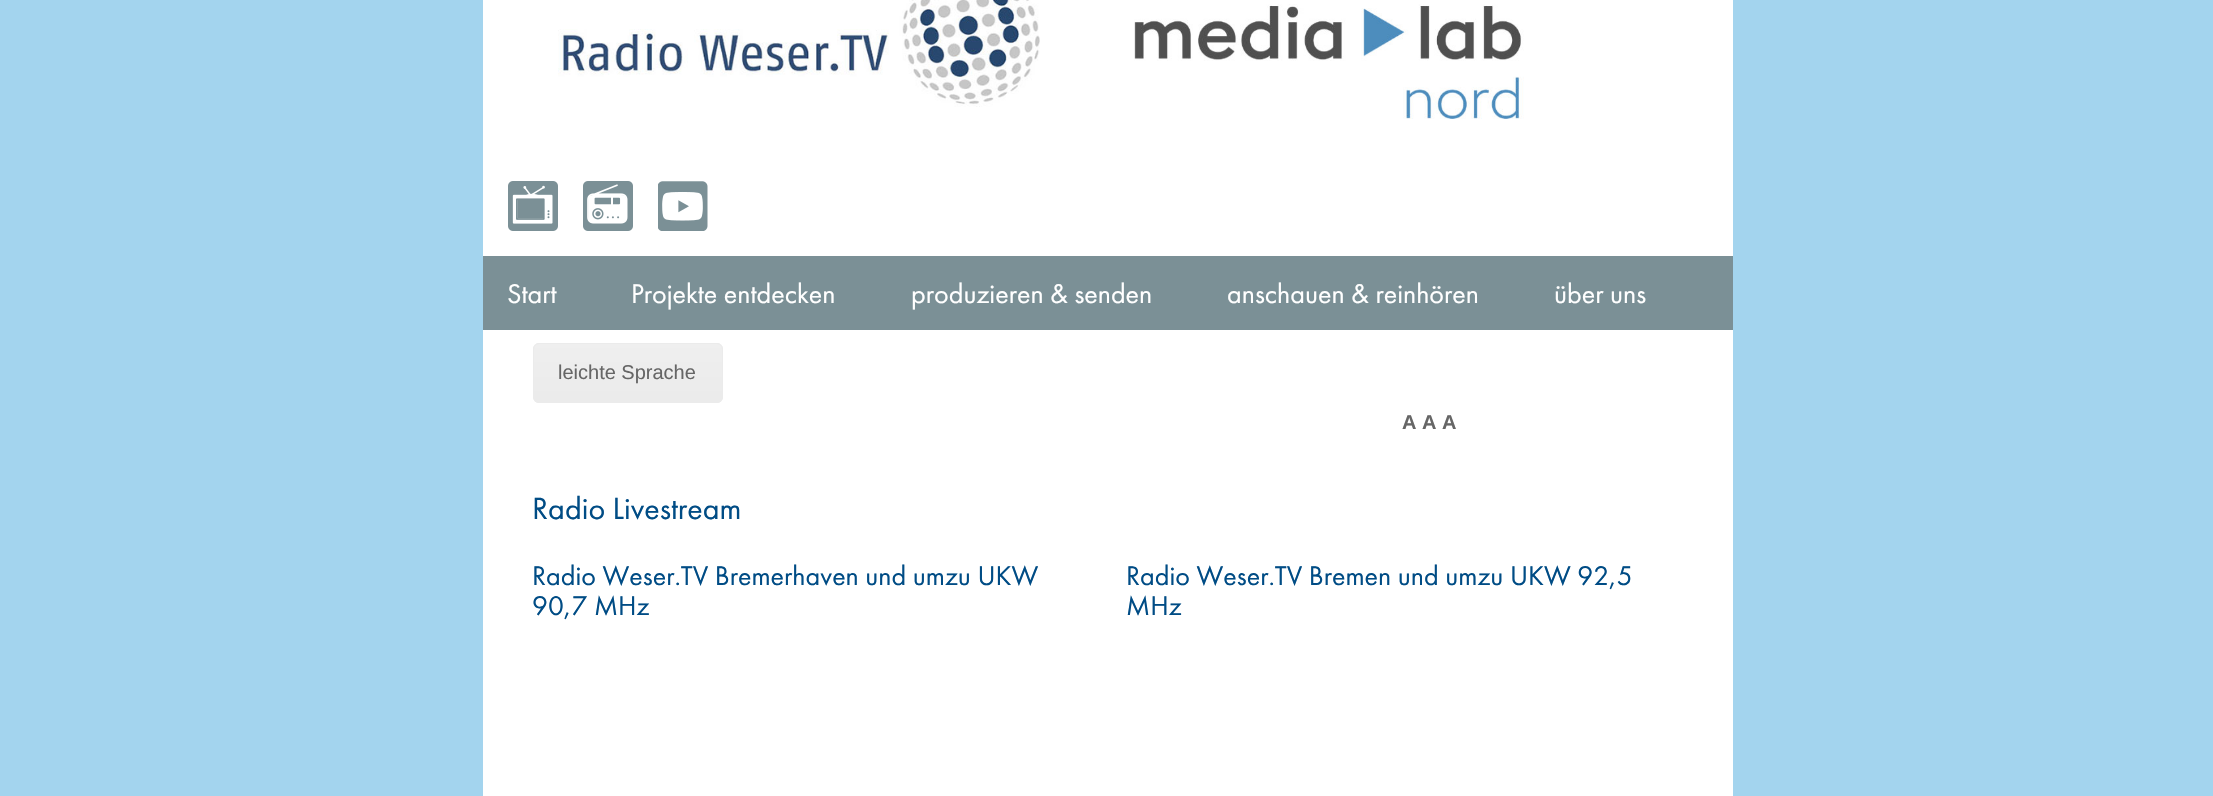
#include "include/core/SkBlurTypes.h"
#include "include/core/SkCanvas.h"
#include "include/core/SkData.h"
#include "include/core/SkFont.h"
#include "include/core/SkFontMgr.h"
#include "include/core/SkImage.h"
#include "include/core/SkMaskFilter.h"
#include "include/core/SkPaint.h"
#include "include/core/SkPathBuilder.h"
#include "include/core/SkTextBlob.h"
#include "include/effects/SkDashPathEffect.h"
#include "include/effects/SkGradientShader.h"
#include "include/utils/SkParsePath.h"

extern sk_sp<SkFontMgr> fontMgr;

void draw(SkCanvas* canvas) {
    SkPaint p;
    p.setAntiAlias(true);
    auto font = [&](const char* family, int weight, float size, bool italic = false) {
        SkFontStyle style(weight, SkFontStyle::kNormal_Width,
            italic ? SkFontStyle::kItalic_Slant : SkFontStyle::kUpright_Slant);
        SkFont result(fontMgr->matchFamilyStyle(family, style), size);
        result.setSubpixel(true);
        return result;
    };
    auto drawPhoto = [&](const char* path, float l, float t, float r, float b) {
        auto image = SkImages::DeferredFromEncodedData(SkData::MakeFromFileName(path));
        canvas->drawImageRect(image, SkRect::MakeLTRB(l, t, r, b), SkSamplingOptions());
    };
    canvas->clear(0xFFA3D4EE);
    p.setColor(0xFFFFFFFF);
    canvas->drawRect(SkRect::MakeLTRB(483, 0, 1733, 256), p);
    drawPhoto("media/1.png", 558, 0, 1040, 107);
    drawPhoto("media/2.png", 1134, 4, 1524, 119);
    drawPhoto("media/3.png", 508, 181, 558, 231);
    drawPhoto("media/4.png", 583, 181, 633, 231);
    drawPhoto("media/5.png", 658, 181, 708, 231);
    p.setColor(0xFF7B9096);
    canvas->drawRect(SkRect::MakeLTRB(483, 256, 1733, 330), p);
    auto font1 = font("Futura PT", 400, 28);
    p.setColor(0xFFFFFFFF);
    {
        const struct { const char* s; float x, y; } items[] = {
            {"Start", 507, 303},
            {"Projekte entdecken", 631, 303},
            {"produzieren & senden", 911, 303},
            {"anschauen & reinhören", 1227, 303},
            {"über uns", 1554, 303},
        };
        for (auto [s, x, y] : items) {
            canvas->drawString(s, x, y, font1, p);
        }
    }
    canvas->drawRect(SkRect::MakeLTRB(483, 330, 1733, 796), p);
    p.setColor(0xFFEBEBEB);
    canvas->drawRoundRect(SkRect::MakeLTRB(533, 343, 723, 403), 6, 6, p);
    canvas->save();
    canvas->clipPath(SkPathBuilder().moveTo(539, 343).lineTo(717, 343).cubicTo(720.5f, 343, 723, 345.5f, 723, 349).lineTo(723, 397).cubicTo(723, 400.5f, 720.5f, 403, 717, 403).lineTo(539, 403).cubicTo(535.5f, 403, 533, 400.5f, 533, 397).lineTo(533, 349).cubicTo(533, 345.5f, 535.5f, 343, 539, 343).close().detach(), true);
    {
        const SkColor colors[] = {0x33FFFFFF, 0x03FFFFFF};
        const float stops[] = {0, 1};
        const SkPoint ends[] = {{628, 344}, {628, 401}};
        p.setShader(SkGradientShader::MakeLinear(ends, colors, stops, 2, SkTileMode::kClamp));
        p.setAlpha(255);
    }
    canvas->drawRect(SkRect::MakeLTRB(533, 344, 723, 398), p);
    canvas->restore();
    p.setStyle(SkPaint::kStroke_Style);
    p.setStrokeWidth(1);
    p.setShader(nullptr);
    p.setColor(0xFFEBEBEB);
    canvas->drawRoundRect(SkRect::MakeLTRB(533.5f, 343.5f, 722.5f, 402.5f), 5.5f, 5.5f, p);
    auto font2 = font("Liberation Sans", 400, 20);
    p.setStyle(SkPaint::kFill_Style);
    p.setColor(0xFF666666);
    canvas->drawString("leichte Sprache", 558, 379, font2, p);
    auto font3 = font("Liberation Sans", 700, 20);
    canvas->drawString("A A A", 1402, 429, font3, p);
    auto font4 = font("Futura PT", 400, 32);
    p.setColor(0xFF004C85);
    canvas->drawString("Radio Livestream", 532, 519, font4, p);
    {
        const struct { const char* s; float x, y; } items[] = {
            {"Radio Weser.TV Bremerhaven und umzu UKW", 532, 585},
            {"90,7 MHz", 532, 615},
            {"Radio Weser.TV Bremen und umzu UKW 92,5", 1126, 585},
            {"MHz", 1126, 615},
        };
        for (auto [s, x, y] : items) {
            canvas->drawString(s, x, y, font1, p);
        }
    }
}
